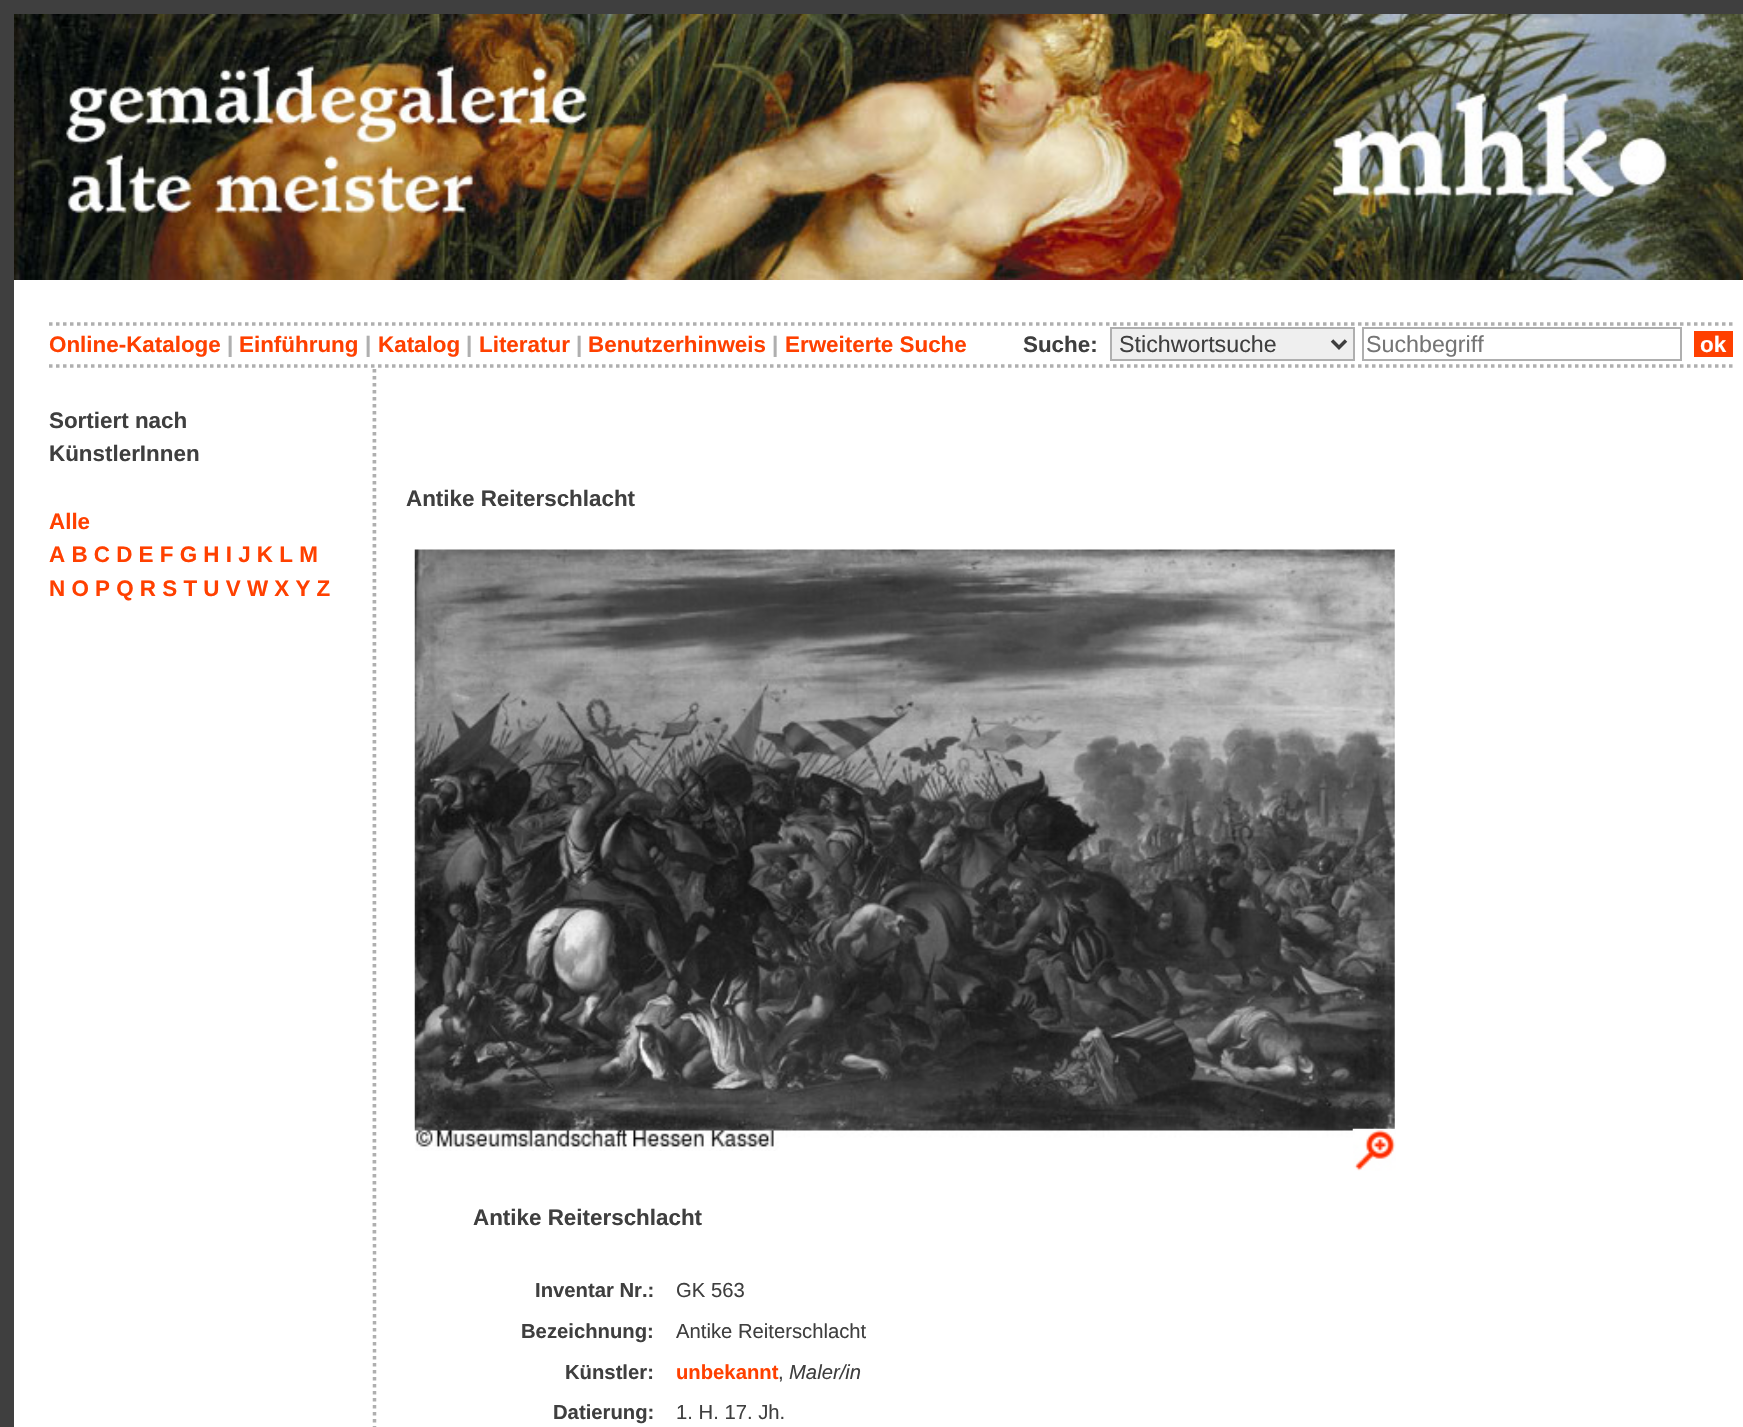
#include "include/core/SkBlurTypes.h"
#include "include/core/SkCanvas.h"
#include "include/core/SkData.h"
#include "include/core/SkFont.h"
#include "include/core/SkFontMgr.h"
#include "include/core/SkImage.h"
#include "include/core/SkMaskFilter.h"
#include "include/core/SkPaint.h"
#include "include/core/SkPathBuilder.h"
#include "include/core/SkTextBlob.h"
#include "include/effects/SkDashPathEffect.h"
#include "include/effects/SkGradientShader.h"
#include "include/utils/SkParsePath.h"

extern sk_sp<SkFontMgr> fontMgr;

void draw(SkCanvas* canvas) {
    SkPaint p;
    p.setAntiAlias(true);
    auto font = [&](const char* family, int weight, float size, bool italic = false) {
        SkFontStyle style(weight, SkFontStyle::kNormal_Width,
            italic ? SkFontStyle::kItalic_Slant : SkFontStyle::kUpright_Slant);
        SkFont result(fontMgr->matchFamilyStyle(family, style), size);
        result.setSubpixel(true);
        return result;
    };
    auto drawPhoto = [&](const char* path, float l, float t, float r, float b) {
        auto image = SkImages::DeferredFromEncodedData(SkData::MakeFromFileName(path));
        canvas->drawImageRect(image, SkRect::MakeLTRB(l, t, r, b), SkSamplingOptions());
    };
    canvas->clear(0xFF3F3F3F);
    p.setColor(0xFFFFFFFF);
    canvas->drawRect(SkRect::MakeLTRB(14, 280, 1743, 1427), p);
    drawPhoto("media/1.png", 14, 14, 1743, 280);
    p.setStyle(SkPaint::kStroke_Style);
    p.setStrokeWidth(3.5f);
    p.setColor(0xFFAFAFAF);
    p.setPathEffect(SkDashPathEffect::Make({{3.5f, 3.5f}}, 0));
    canvas->drawPath(SkPathBuilder().moveTo(49, 324).lineTo(1732.5f, 324).detach(), p);
    p.setPathEffect(nullptr);
    auto font1 = font("Liberation Sans", 700, 22.4f);
    p.setStyle(SkPaint::kFill_Style);
    p.setColor(0xFFFF4000);
    canvas->drawString("Online-Kataloge", 49, 352, font1, p);
    p.setColor(0xFFAFAFAF);
    canvas->drawString("|", 227, 352, font1, p);
    p.setColor(0xFFFF4000);
    canvas->drawString("Einführung", 239, 352, font1, p);
    p.setColor(0xFFAFAFAF);
    canvas->drawString("|", 365, 352, font1, p);
    p.setColor(0xFFFF4000);
    canvas->drawString("Katalog", 378, 352, font1, p);
    p.setColor(0xFFAFAFAF);
    canvas->drawString("|", 466, 352, font1, p);
    p.setColor(0xFFFF4000);
    canvas->drawString("Literatur", 479, 352, font1, p);
    p.setColor(0xFFAFAFAF);
    canvas->drawString("|", 576, 352, font1, p);
    p.setColor(0xFFFF4000);
    canvas->drawString("Benutzerhinweis", 588, 352, font1, p);
    p.setColor(0xFFAFAFAF);
    canvas->drawString("|", 772, 352, font1, p);
    p.setColor(0xFFFF4000);
    canvas->drawString("Erweiterte Suche", 785, 352, font1, p);
    p.setColor(0xFF3F3F3F);
    canvas->drawString("Suche:", 1023, 352, font1, p);
    p.setColor(0xFFEFEFEF);
    canvas->drawRect(SkRect::MakeLTRB(1111, 328, 1354, 360), p);
    p.setStyle(SkPaint::kStroke_Style);
    p.setStrokeWidth(2);
    p.setColor(0xFFAFAFAF);
    canvas->drawRect(SkRect::MakeLTRB(1111, 328, 1354, 360), p);
    p.setStrokeWidth(3.5f);
    p.setColor(0xFF3F3F3F);
    canvas->drawPath(SkPathBuilder().moveTo(1332, 340.5f).lineTo(1339, 347.5f).lineTo(1346, 340.5f).detach(), p);
    auto font2 = font("Liberation Sans", 400, 23.25f);
    p.setStyle(SkPaint::kFill_Style);
    canvas->drawString("Stichwortsuche", 1119, 352, font2, p);
    p.setStyle(SkPaint::kStroke_Style);
    p.setStrokeWidth(2);
    p.setColor(0xFFAFAFAF);
    canvas->drawRect(SkRect::MakeLTRB(1363, 328, 1681, 360), p);
    p.setStyle(SkPaint::kFill_Style);
    p.setColor(0xFF757575);
    canvas->drawString("Suchbegriff", 1366, 352, font2, p);
    p.setColor(0xFFFF4000);
    canvas->drawRect(SkRect::MakeLTRB(1694, 331, 1733, 357), p);
    p.setColor(0xFFFFFFFF);
    canvas->drawString("ok", 1700, 352, font1, p);
    p.setStyle(SkPaint::kStroke_Style);
    p.setStrokeWidth(3.5f);
    p.setColor(0xFFAFAFAF);
    p.setPathEffect(SkDashPathEffect::Make({{3.5f, 3.5f}}, 0));
    canvas->drawPath(SkPathBuilder().moveTo(49, 366).lineTo(1732.5f, 366).detach(), p);
    p.setPathEffect(nullptr);
    p.setPathEffect(SkDashPathEffect::Make({{3.5f, 3.5f}}, 0));
    canvas->drawPath(SkPathBuilder().moveTo(374.5f, 369).lineTo(374.5f, 1244).detach(), p);
    p.setPathEffect(nullptr);
    p.setStyle(SkPaint::kFill_Style);
    p.setColor(0xFF3F3F3F);
    canvas->drawString("Sortiert nach", 49, 428, font1, p);
    canvas->drawString("KünstlerInnen", 49, 461, font1, p);
    p.setColor(0xFFFF4000);
    {
        const struct { const char* s; float x, y; } items[] = {
            {"Alle", 49, 529},
            {"A B C D E F G H I J K L M", 49, 562},
            {"N O P Q R S T U V W X Y Z", 49, 596},
        };
        for (auto [s, x, y] : items) {
            canvas->drawString(s, x, y, font1, p);
        }
    }
    p.setColor(0xFFFFFFFF);
    canvas->drawRect(SkRect::MakeLTRB(373, 369, 377, 1241), p);
    p.setStyle(SkPaint::kStroke_Style);
    p.setColor(0xFFAFAFAF);
    p.setPathEffect(SkDashPathEffect::Make({{3.5f, 3.5f}}, 0));
    canvas->drawPath(SkPathBuilder().moveTo(374.5f, 369).lineTo(374.5f, 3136).detach(), p);
    p.setPathEffect(nullptr);
    p.setStyle(SkPaint::kFill_Style);
    p.setColor(0xFF3F3F3F);
    canvas->drawString("Antike Reiterschlacht", 406, 506, font1, p);
    drawPhoto("media/2.png", 414, 549, 1395, 1151);
    drawPhoto("media/3.png", 1352, 1128, 1396, 1171);
    canvas->drawString("Antike Reiterschlacht", 473, 1225, font1, p);
    auto font3 = font("Liberation Sans", 700, 20.25f);
    canvas->drawString("Inventar Nr.:", 535, 1297, font3, p);
    auto font4 = font("Liberation Sans", 400, 20.25f);
    canvas->drawString("GK 563", 676, 1297, font4, p);
    canvas->drawString("Bezeichnung:", 521, 1338, font3, p);
    canvas->drawString("Antike Reiterschlacht", 676, 1338, font4, p);
    canvas->drawString("Künstler:", 565, 1379, font3, p);
    p.setColor(0xFFFF4000);
    canvas->drawString("unbekannt", 676, 1379, font3, p);
    p.setColor(0xFF3F3F3F);
    canvas->drawString(",", 778, 1379, font4, p);
    auto font5 = font("Liberation Sans", 400, 20.25f, true);
    canvas->drawString("Maler/in", 789, 1379, font5, p);
    canvas->drawString("Datierung:", 553, 1419, font3, p);
    canvas->drawString("1. H. 17. Jh.", 676, 1419, font4, p);
}
